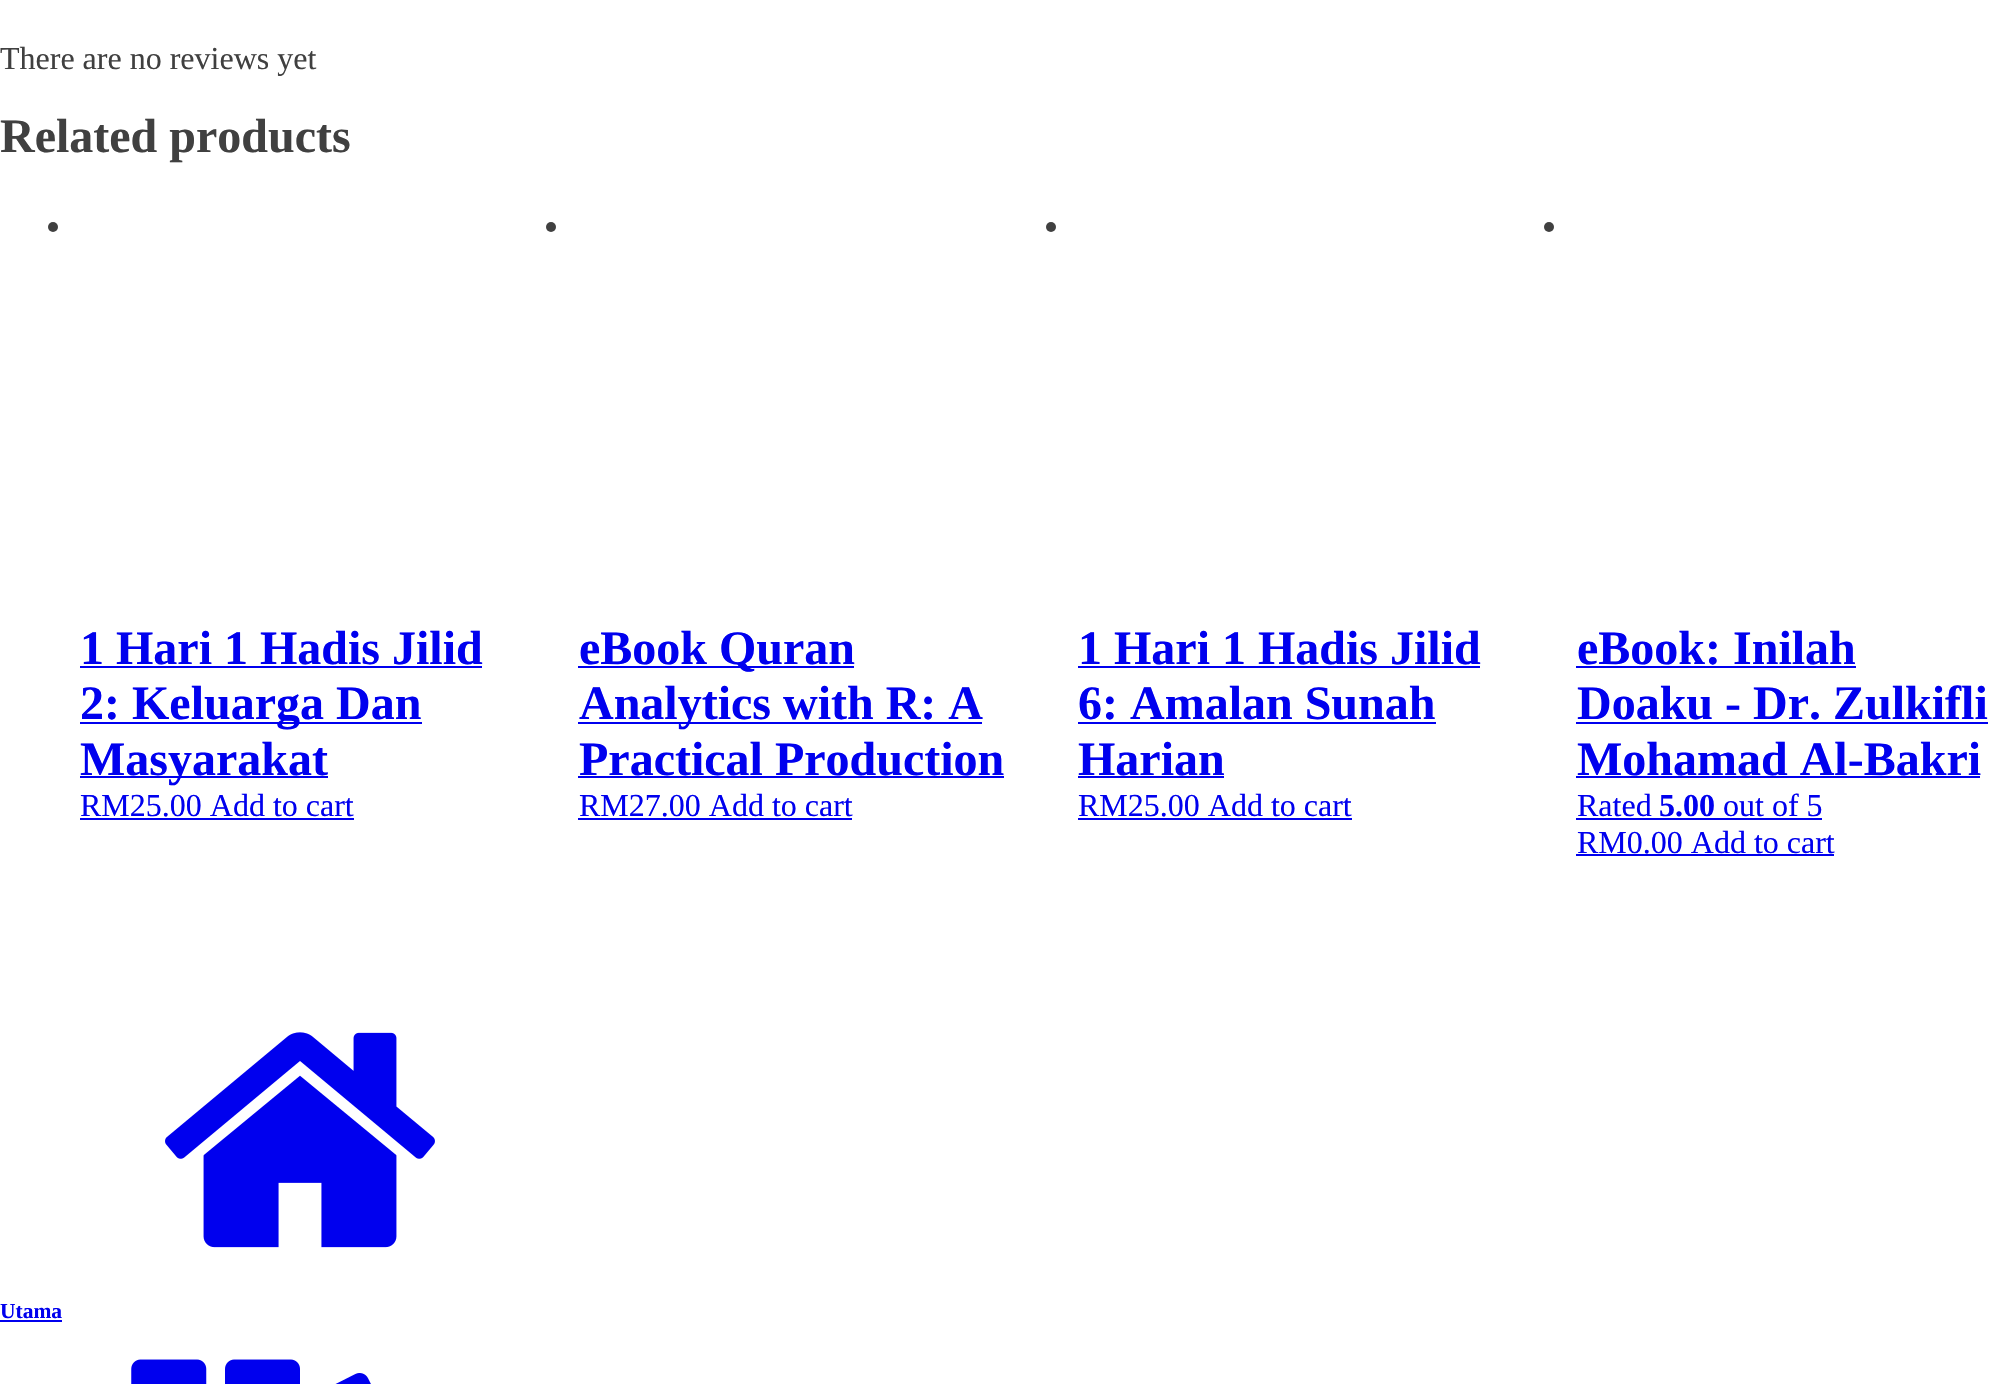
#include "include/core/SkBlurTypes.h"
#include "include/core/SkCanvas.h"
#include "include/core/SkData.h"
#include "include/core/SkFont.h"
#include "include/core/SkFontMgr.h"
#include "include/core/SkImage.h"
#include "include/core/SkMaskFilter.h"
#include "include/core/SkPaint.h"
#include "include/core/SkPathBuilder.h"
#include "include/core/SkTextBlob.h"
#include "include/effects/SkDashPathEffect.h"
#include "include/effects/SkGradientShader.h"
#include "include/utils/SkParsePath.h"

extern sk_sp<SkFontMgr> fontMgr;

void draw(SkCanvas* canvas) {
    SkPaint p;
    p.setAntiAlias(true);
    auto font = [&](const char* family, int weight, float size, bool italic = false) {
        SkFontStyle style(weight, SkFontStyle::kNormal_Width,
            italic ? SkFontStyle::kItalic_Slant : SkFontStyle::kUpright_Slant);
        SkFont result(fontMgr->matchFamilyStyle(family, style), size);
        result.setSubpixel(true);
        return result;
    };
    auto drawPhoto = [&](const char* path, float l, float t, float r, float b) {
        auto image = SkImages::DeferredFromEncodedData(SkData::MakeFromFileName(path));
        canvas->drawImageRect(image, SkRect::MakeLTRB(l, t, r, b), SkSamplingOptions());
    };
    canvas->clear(0xFFFFFFFF);
    auto font1 = font("Liberation Serif", 400, 32);
    p.setColor(0xFF404040);
    canvas->drawString("There are no reviews yet", 0, 69, font1, p);
    auto font2 = font("Liberation Serif", 700, 48);
    canvas->drawString("Related products", 0, 152, font2, p);
    canvas->drawCircle(53, 227, 5, p);
    p.setColor(0xFF0000EE);
    canvas->drawString("1 Hari 1 Hadis Jilid", 80, 664, font2, p);
    canvas->drawRect(SkRect::MakeLTRB(80, 666, 482, 668), p);
    canvas->drawRect(SkRect::MakeLTRB(80, 722, 422, 724), p);
    canvas->drawString("2: Keluarga Dan", 80, 719, font2, p);
    canvas->drawRect(SkRect::MakeLTRB(80, 776, 328, 778), p);
    canvas->drawString("Masyarakat", 80, 775, font2, p);
    canvas->drawString("RM25.00 Add to cart", 80, 816, font1, p);
    canvas->drawRect(SkRect::MakeLTRB(80, 818, 354, 820), p);
    p.setColor(0xFF404040);
    canvas->drawCircle(551, 227, 5, p);
    p.setColor(0xFF0000EE);
    canvas->drawRect(SkRect::MakeLTRB(578, 666, 854, 668), p);
    canvas->drawString("eBook Quran", 579, 664, font2, p);
    canvas->drawRect(SkRect::MakeLTRB(578, 722, 982, 724), p);
    canvas->drawString("Analytics with R: A", 579, 719, font2, p);
    canvas->drawString("Practical Production", 579, 775, font2, p);
    canvas->drawRect(SkRect::MakeLTRB(578, 776, 1004, 778), p);
    canvas->drawString("RM27.00 Add to cart", 579, 816, font1, p);
    canvas->drawRect(SkRect::MakeLTRB(578, 818, 852, 820), p);
    p.setColor(0xFF404040);
    canvas->drawCircle(1051, 227, 5, p);
    p.setColor(0xFF0000EE);
    canvas->drawString("1 Hari 1 Hadis Jilid", 1078, 664, font2, p);
    canvas->drawRect(SkRect::MakeLTRB(1078, 666, 1480, 668), p);
    canvas->drawString("6: Amalan Sunah", 1078, 719, font2, p);
    canvas->drawRect(SkRect::MakeLTRB(1078, 722, 1436, 724), p);
    canvas->drawString("Harian", 1078, 775, font2, p);
    canvas->drawRect(SkRect::MakeLTRB(1078, 776, 1224, 778), p);
    canvas->drawString("RM25.00 Add to cart", 1078, 816, font1, p);
    canvas->drawRect(SkRect::MakeLTRB(1078, 818, 1352, 820), p);
    p.setColor(0xFF404040);
    canvas->drawCircle(1549, 227, 5, p);
    p.setColor(0xFF0000EE);
    canvas->drawString("eBook: Inilah", 1577, 664, font2, p);
    canvas->drawRect(SkRect::MakeLTRB(1576, 666, 1856, 668), p);
    canvas->drawString("Doaku - Dr. Zulkifli", 1577, 719, font2, p);
    canvas->drawRect(SkRect::MakeLTRB(1576, 722, 1988, 724), p);
    canvas->drawString("Mohamad Al-Bakri", 1577, 775, font2, p);
    canvas->drawRect(SkRect::MakeLTRB(1576, 776, 1980, 778), p);
    canvas->drawString("Rated", 1577, 816, font1, p);
    auto font3 = font("Liberation Serif", 700, 32);
    canvas->drawString("5.00", 1659, 816, font3, p);
    canvas->drawRect(SkRect::MakeLTRB(1576, 818, 1822, 820), p);
    canvas->drawString("out of 5", 1723, 816, font1, p);
    canvas->drawString("RM0.00 Add to cart", 1577, 853, font1, p);
    canvas->drawRect(SkRect::MakeLTRB(1576, 854, 1834, 856), p);
    drawPhoto("media/1.png", 165, 1032, 435, 1248);
    auto font4 = font("Liberation Serif", 700, 21.5f);
    canvas->drawString("Utama", 0, 1318, font4, p);
    canvas->drawRect(SkRect::MakeLTRB(0, 1320, 62, 1322), p);
    drawPhoto("media/2.png", 131, 1359, 371, 1384);
}
